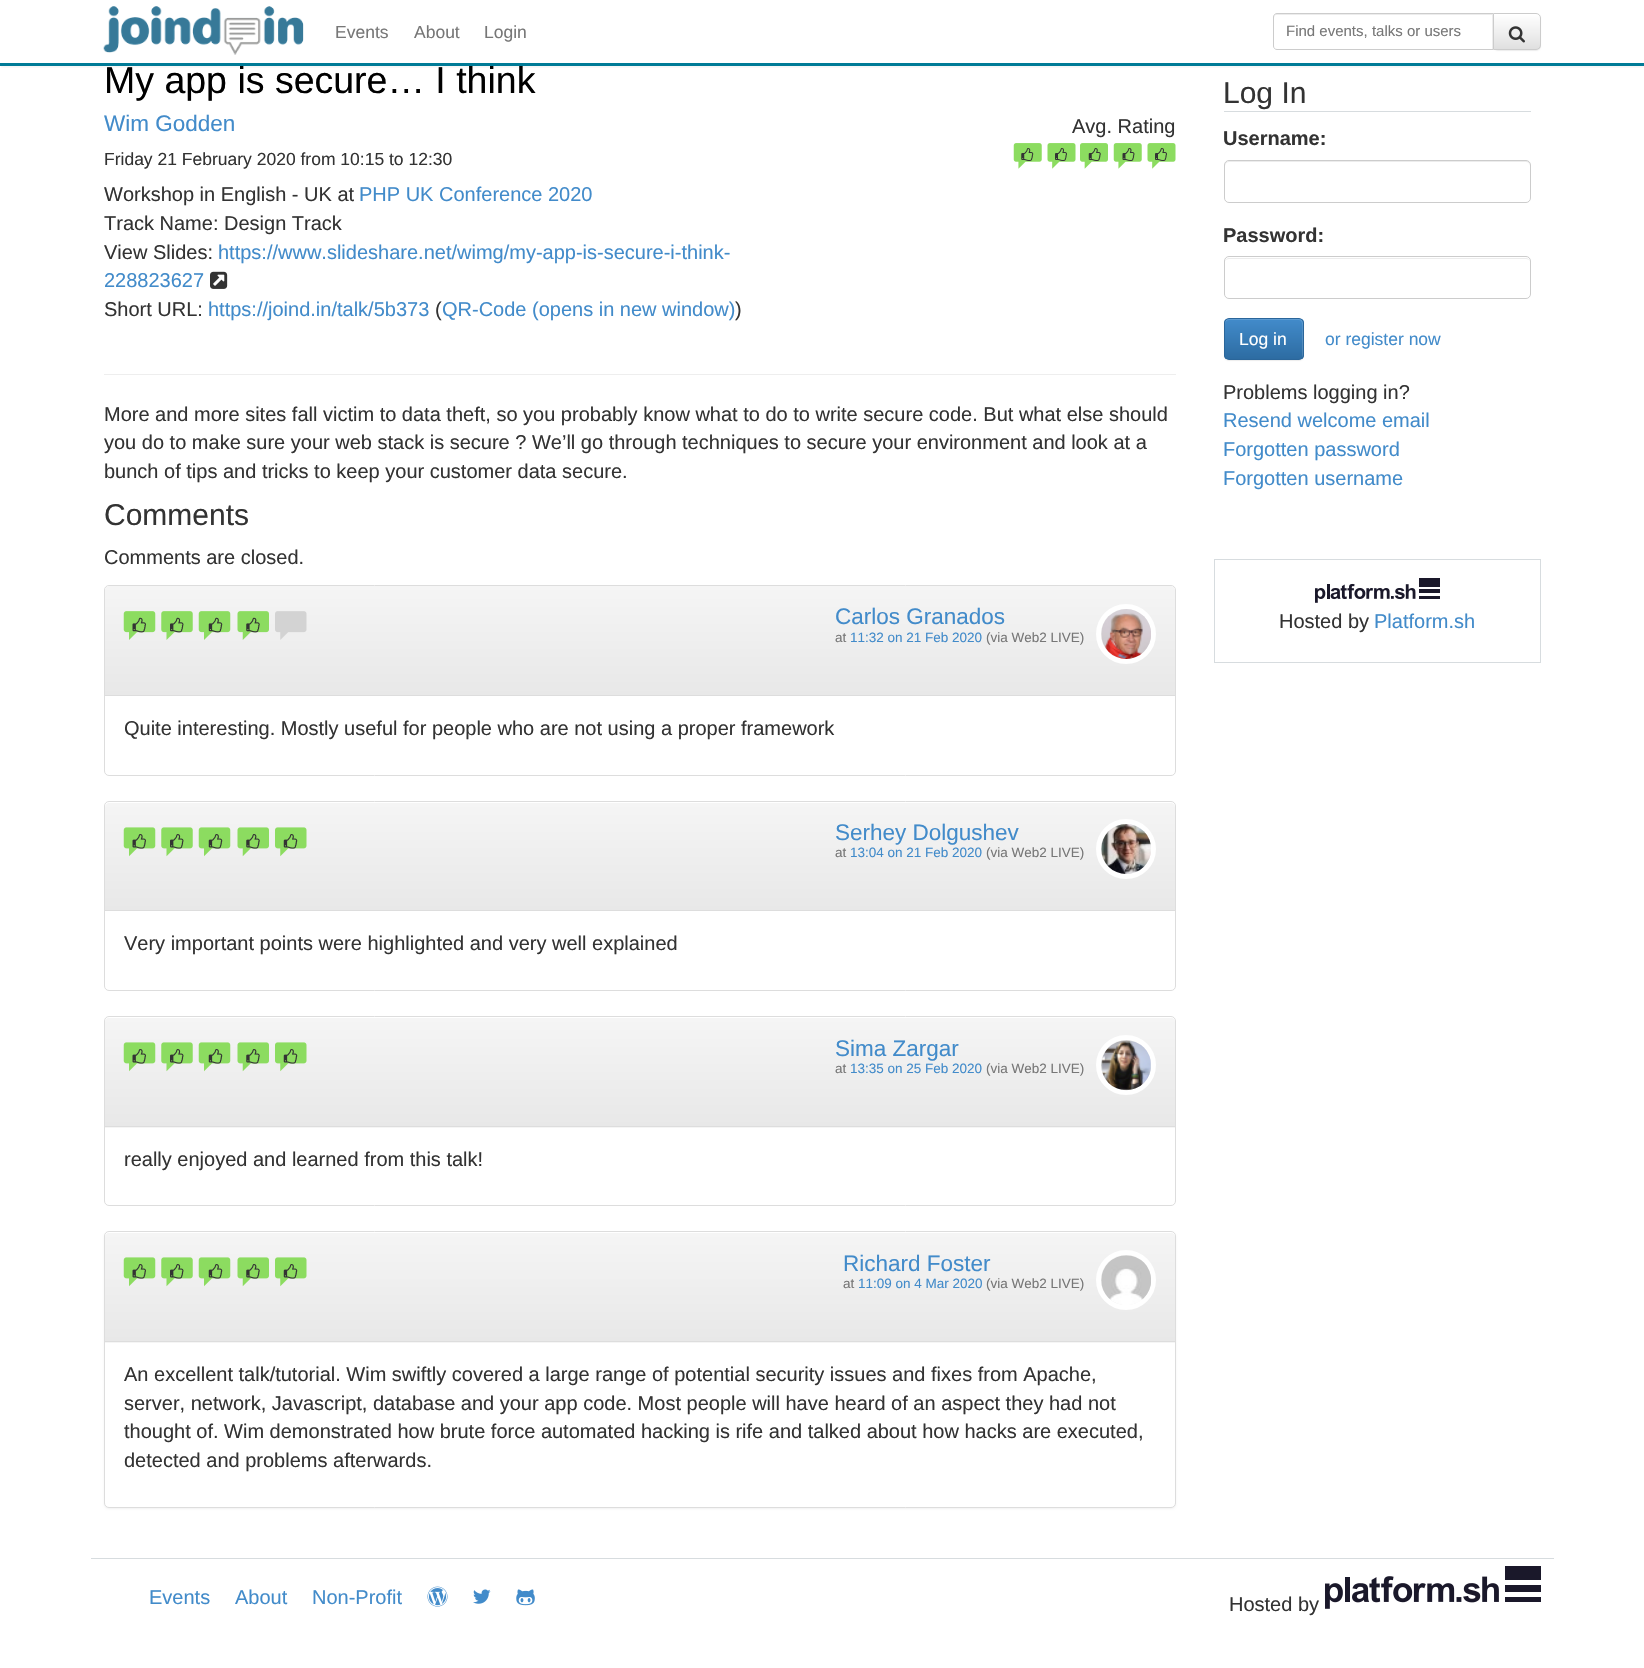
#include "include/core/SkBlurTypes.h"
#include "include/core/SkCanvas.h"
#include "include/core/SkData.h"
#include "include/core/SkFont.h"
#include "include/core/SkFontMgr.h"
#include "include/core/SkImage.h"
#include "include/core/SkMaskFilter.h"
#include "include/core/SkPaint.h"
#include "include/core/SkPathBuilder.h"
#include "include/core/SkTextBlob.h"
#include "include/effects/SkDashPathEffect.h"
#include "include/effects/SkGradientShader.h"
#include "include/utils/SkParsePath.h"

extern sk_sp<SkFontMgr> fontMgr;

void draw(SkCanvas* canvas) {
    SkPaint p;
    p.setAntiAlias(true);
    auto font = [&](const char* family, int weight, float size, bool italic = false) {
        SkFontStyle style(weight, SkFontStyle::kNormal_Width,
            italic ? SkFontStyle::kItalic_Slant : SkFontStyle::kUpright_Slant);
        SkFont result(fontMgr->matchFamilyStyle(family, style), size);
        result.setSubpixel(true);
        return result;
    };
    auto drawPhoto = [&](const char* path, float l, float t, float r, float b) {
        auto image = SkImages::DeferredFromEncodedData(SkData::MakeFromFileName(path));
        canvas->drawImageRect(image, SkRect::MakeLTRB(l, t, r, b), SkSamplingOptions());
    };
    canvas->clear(0xFFFFFFFF);
    canvas->save();
    canvas->clipRect(SkRect::MakeLTRB(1, 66, 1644, 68));
    p.setColor(0x12000000);
    p.setMaskFilter(SkMaskFilter::MakeBlur(kNormal_SkBlurStyle, 3));
    canvas->drawRect(SkRect::MakeLTRB(0, 1, 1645, 66), p);
    p.setMaskFilter(nullptr);
    canvas->restore();
    auto font1 = font("Liberation Sans", 400, 37.5f);
    p.setColor(0xFF000000);
    canvas->drawString("My app is secure… I think", 104, 93, font1, p);
    p.setColor(0xFF007B97);
    canvas->drawRect(SkRect::MakeLTRB(0, 63, 1644, 66), p);
    drawPhoto("media/1.png", 103, 6, 304, 55);
    auto font2 = font("Liberation Sans", 400, 17.5f);
    p.setColor(0xFF777777);
    {
        const struct { const char* s; float x, y; } items[] = {
            {"Events", 335, 38},
            {"About", 414, 38},
            {"Login", 484, 38},
        };
        for (auto [s, x, y] : items) {
            canvas->drawString(s, x, y, font2, p);
        }
    }
    p.setColor(0x12000000);
    p.setMaskFilter(SkMaskFilter::MakeBlur(kNormal_SkBlurStyle, 0.5f));
    canvas->drawRoundRect(SkRect::MakeLTRB(1493, 14, 1541, 51), 5, 5, p);
    p.setMaskFilter(nullptr);
    canvas->save();
    canvas->clipPath(SkPathBuilder().moveTo(1493, 13).lineTo(1536, 13).cubicTo(1539, 13, 1541, 15, 1541, 18).lineTo(1541, 45).cubicTo(1541, 48, 1539, 50, 1536, 50).lineTo(1493, 50).close().detach(), true);
    {
        const SkColor colors[] = {0xFFFFFFFF, 0xFFE0E0E0};
        const float stops[] = {0, 1};
        const SkPoint ends[] = {{1517, 14}, {1517, 49}};
        p.setShader(SkGradientShader::MakeLinear(ends, colors, stops, 2, SkTileMode::kClamp));
        p.setAlpha(255);
    }
    canvas->drawRect(SkRect::MakeLTRB(1494, 14, 1541, 49), p);
    canvas->restore();
    p.setStyle(SkPaint::kStroke_Style);
    p.setStrokeWidth(1);
    p.setShader(nullptr);
    p.setColor(0xFFCCCCCC);
    canvas->drawPath(SkPathBuilder().moveTo(1493.5f, 13.5f).lineTo(1536, 13.5f).cubicTo(1538.5f, 13.5f, 1540.5f, 15.5f, 1540.5f, 18).lineTo(1540.5f, 45).cubicTo(1540.5f, 47.5f, 1538.5f, 49.5f, 1536, 49.5f).lineTo(1493.5f, 49.5f).close().detach(), p);
    p.setStyle(SkPaint::kFill_Style);
    p.setColor(0xFFFFFFFF);
    canvas->drawPath(SkPathBuilder().moveTo(1277, 13).lineTo(1494, 13).lineTo(1494, 50).lineTo(1277, 50).cubicTo(1275, 50, 1273, 48, 1273, 46).lineTo(1273, 17).cubicTo(1273, 15, 1275, 13, 1277, 13).close().detach(), p);
    p.setColor(0xFFECECEC);
    canvas->drawPath(SkPathBuilder().moveTo(1276, 15).lineTo(1492, 15).lineTo(1492, 49).lineTo(1493, 49).lineTo(1493, 14).lineTo(1276, 14).cubicTo(1274, 14, 1274, 16, 1274, 18).cubicTo(1274, 16, 1275, 15, 1276, 15).close().detach(), p);
    p.setStyle(SkPaint::kStroke_Style);
    p.setColor(0xFFCCCCCC);
    canvas->drawPath(SkPathBuilder().moveTo(1277, 13.5f).lineTo(1493.5f, 13.5f).lineTo(1493.5f, 49.5f).lineTo(1277, 49.5f).cubicTo(1275, 49.5f, 1273.5f, 48, 1273.5f, 46).lineTo(1273.5f, 17).cubicTo(1273.5f, 15, 1275, 13.5f, 1277, 13.5f).close().detach(), p);
    auto font3 = font("Liberation Sans", 400, 15);
    p.setStyle(SkPaint::kFill_Style);
    p.setColor(0xFF777777);
    canvas->drawString("Find events, talks or users", 1286, 36, font3, p);
    drawPhoto("media/2.png", 1508, 26, 1525, 43);
    p.setColor(0xFFEEEEEE);
    canvas->drawRect(SkRect::MakeLTRB(104, 374, 1176, 375), p);
    auto font4 = font("Liberation Sans", 400, 22.5f);
    p.setColor(0xFF428BCA);
    canvas->drawString("Wim Godden", 104, 131, font4, p);
    p.setColor(0xFF333333);
    canvas->drawString("Friday 21 February 2020 from 10:15 to 12:30", 104, 165, font2, p);
    auto font5 = font("Liberation Sans", 400, 20);
    canvas->drawString("Workshop in English - UK at", 104, 201, font5, p);
    p.setColor(0xFF428BCA);
    canvas->drawString("PHP UK Conference 2020", 359, 201, font5, p);
    p.setColor(0xFF333333);
    canvas->drawString("Track Name: Design Track", 104, 230, font5, p);
    canvas->drawString("View Slides:", 104, 259, font5, p);
    p.setColor(0xFF428BCA);
    canvas->drawString("https://www.slideshare.net/wimg/my-app-is-secure-i-think-", 218, 259, font5, p);
    canvas->drawString("228823627", 104, 287, font5, p);
    drawPhoto("media/3.png", 210, 271, 228, 289);
    p.setColor(0xFF333333);
    canvas->drawString("Short URL:", 104, 316, font5, p);
    p.setColor(0xFF428BCA);
    canvas->drawString("https://joind.in/talk/5b373", 208, 316, font5, p);
    p.setColor(0xFF333333);
    canvas->drawString("(", 435, 316, font5, p);
    p.setColor(0xFF428BCA);
    canvas->drawString("QR-Code (opens in new window)", 442, 316, font5, p);
    p.setColor(0xFF333333);
    canvas->drawString(")", 735, 316, font5, p);
    canvas->drawString("Avg. Rating", 1072, 133, font5, p);
    drawPhoto("media/4.png", 1013, 143, 1042, 169);
    drawPhoto("media/5.png", 1021, 148, 1034, 161);
    drawPhoto("media/6.png", 1047, 143, 1076, 169);
    drawPhoto("media/7.png", 1055, 148, 1067, 161);
    drawPhoto("media/8.png", 1080, 143, 1108, 169);
    drawPhoto("media/9.png", 1088, 148, 1101, 161);
    drawPhoto("media/4.png", 1113, 143, 1142, 169);
    drawPhoto("media/10.png", 1122, 148, 1135, 161);
    drawPhoto("media/6.png", 1147, 143, 1176, 169);
    drawPhoto("media/7.png", 1155, 148, 1167, 161);
    {
        const struct { const char* s; float x, y; } items[] = {
            {"More and more sites fall victim to data theft, so you probably know what to do to write secure code. But what else should", 104, 421},
            {"you do to make sure your web stack is secure ? We’ll go through techniques to secure your environment and look at a", 104, 449},
            {"bunch of tips and tricks to keep your customer data secure.", 104, 478},
        };
        for (auto [s, x, y] : items) {
            canvas->drawString(s, x, y, font5, p);
        }
    }
    auto font6 = font("Liberation Sans", 400, 30);
    canvas->drawString("Comments", 104, 525, font6, p);
    canvas->drawString("Comments are closed.", 104, 564, font5, p);
    p.setStyle(SkPaint::kStroke_Style);
    p.setColor(0xFFDDDDDD);
    canvas->drawRoundRect(SkRect::MakeLTRB(104.5f, 585.5f, 1175.5f, 775.5f), 4.5f, 4.5f, p);
    p.setStyle(SkPaint::kFill_Style);
    {
        const SkColor colors[] = {0xFFF5F5F5, 0xFFE8E8E8};
        const float stops[] = {0, 1};
        const SkPoint ends[] = {{640, 586}, {640, 695}};
        p.setShader(SkGradientShader::MakeLinear(ends, colors, stops, 2, SkTileMode::kClamp));
        p.setAlpha(255);
    }
    canvas->drawPath(SkPathBuilder().moveTo(109, 586).lineTo(1171, 586).cubicTo(1173, 586, 1175, 588, 1175, 590).lineTo(1175, 695).lineTo(105, 695).lineTo(105, 590).cubicTo(105, 588, 107, 586, 109, 586).close().detach(), p);
    p.setShader(nullptr);
    p.setColor(0xFFDDDDDD);
    canvas->drawRect(SkRect::MakeLTRB(105, 695, 1175, 696), p);
    drawPhoto("media/11.png", 123, 611, 156, 640);
    drawPhoto("media/12.png", 132, 617, 146, 633);
    drawPhoto("media/13.png", 161, 611, 193, 640);
    drawPhoto("media/14.png", 170, 617, 184, 633);
    drawPhoto("media/11.png", 198, 611, 231, 640);
    drawPhoto("media/15.png", 208, 617, 223, 633);
    drawPhoto("media/16.png", 237, 611, 269, 640);
    drawPhoto("media/17.png", 246, 617, 260, 633);
    drawPhoto("media/18.png", 275, 611, 307, 640);
    p.setColor(0xFF428BCA);
    canvas->drawString("Carlos Granados", 835, 624, font4, p);
    auto font7 = font("Liberation Sans", 400, 13.5f);
    p.setColor(0xFF777777);
    canvas->drawString("at", 835, 642, font7, p);
    p.setColor(0xFF428BCA);
    canvas->drawString("11:32 on 21 Feb 2020", 850, 642, font7, p);
    p.setColor(0xFF777777);
    canvas->drawString("(via Web2 LIVE)", 986, 642, font7, p);
    p.setStyle(SkPaint::kStroke_Style);
    p.setStrokeWidth(5);
    p.setColor(0xFFFFFFFF);
    canvas->drawCircle(1126, 634, 27.5f, p);
    drawPhoto("media/19.png", 1101, 609, 1151, 659);
    p.setStyle(SkPaint::kFill_Style);
    p.setColor(0xFF333333);
    canvas->drawString("Quite interesting. Mostly useful for people who are not using a proper framework", 124, 735, font5, p);
    p.setStyle(SkPaint::kStroke_Style);
    p.setStrokeWidth(1);
    p.setColor(0xFFDDDDDD);
    canvas->drawRoundRect(SkRect::MakeLTRB(104.5f, 801.5f, 1175.5f, 990.5f), 4.5f, 4.5f, p);
    p.setStyle(SkPaint::kFill_Style);
    {
        const SkColor colors[] = {0xFFF5F5F5, 0xFFE8E8E8};
        const float stops[] = {0, 1};
        const SkPoint ends[] = {{640, 803}, {640, 910}};
        p.setShader(SkGradientShader::MakeLinear(ends, colors, stops, 2, SkTileMode::kClamp));
        p.setAlpha(255);
    }
    canvas->drawPath(SkPathBuilder().moveTo(109, 803).lineTo(1171, 803).cubicTo(1173, 803, 1175, 805, 1175, 807).lineTo(1175, 910).lineTo(105, 910).lineTo(105, 807).cubicTo(105, 805, 107, 803, 109, 803).close().detach(), p);
    p.setShader(nullptr);
    p.setColor(0xFFDDDDDD);
    canvas->drawRect(SkRect::MakeLTRB(105, 910, 1175, 911), p);
    drawPhoto("media/20.png", 123, 827, 156, 857);
    drawPhoto("media/21.png", 132, 834, 146, 849);
    drawPhoto("media/22.png", 161, 827, 193, 857);
    drawPhoto("media/23.png", 170, 834, 184, 849);
    drawPhoto("media/20.png", 198, 827, 231, 857);
    drawPhoto("media/24.png", 208, 834, 223, 849);
    drawPhoto("media/25.png", 237, 827, 269, 857);
    drawPhoto("media/26.png", 246, 834, 260, 849);
    drawPhoto("media/27.png", 275, 827, 307, 857);
    drawPhoto("media/28.png", 283, 834, 298, 849);
    p.setColor(0xFF428BCA);
    canvas->drawString("Serhey Dolgushev", 835, 840, font4, p);
    p.setColor(0xFF777777);
    canvas->drawString("at", 835, 857, font7, p);
    p.setColor(0xFF428BCA);
    canvas->drawString("13:04 on 21 Feb 2020", 850, 857, font7, p);
    p.setColor(0xFF777777);
    canvas->drawString("(via Web2 LIVE)", 986, 857, font7, p);
    p.setStyle(SkPaint::kStroke_Style);
    p.setStrokeWidth(5);
    p.setColor(0xFFFFFFFF);
    canvas->drawCircle(1126, 849, 27.5f, p);
    drawPhoto("media/29.png", 1101, 824, 1151, 874);
    p.setStyle(SkPaint::kFill_Style);
    p.setColor(0xFF333333);
    canvas->drawString("Very important points were highlighted and very well explained", 124, 950, font5, p);
    p.setStyle(SkPaint::kStroke_Style);
    p.setStrokeWidth(1);
    p.setColor(0xFFDDDDDD);
    canvas->drawRoundRect(SkRect::MakeLTRB(104.5f, 1016.5f, 1175.5f, 1205.5f), 4.5f, 4.5f, p);
    p.setStyle(SkPaint::kFill_Style);
    p.setColor(0xFFF5F5F5);
    canvas->drawPath(SkPathBuilder().moveTo(109, 1018).lineTo(1171, 1018).cubicTo(1173, 1018, 1175, 1020, 1175, 1022).lineTo(1175, 1128).lineTo(105, 1128).lineTo(105, 1022).cubicTo(105, 1020, 107, 1018, 109, 1018).close().detach(), p);
    {
        const SkColor colors[] = {0xFFF5F5F5, 0xFFE8E8E8};
        const float stops[] = {0, 1};
        const SkPoint ends[] = {{640, 1018}, {640, 1126}};
        p.setShader(SkGradientShader::MakeLinear(ends, colors, stops, 2, SkTileMode::kClamp));
        p.setAlpha(255);
    }
    canvas->drawPath(SkPathBuilder().moveTo(109, 1018).lineTo(1171, 1018).cubicTo(1173, 1018, 1175, 1020, 1175, 1022).lineTo(1175, 1126).lineTo(105, 1126).lineTo(105, 1022).cubicTo(105, 1020, 107, 1018, 109, 1018).close().detach(), p);
    p.setShader(nullptr);
    p.setColor(0xFFDDDDDD);
    canvas->drawRect(SkRect::MakeLTRB(105, 1126, 1175, 1127), p);
    drawPhoto("media/30.png", 123, 1042, 156, 1072);
    drawPhoto("media/31.png", 132, 1049, 146, 1064);
    drawPhoto("media/32.png", 161, 1042, 193, 1072);
    drawPhoto("media/33.png", 170, 1049, 184, 1064);
    drawPhoto("media/30.png", 198, 1042, 231, 1072);
    drawPhoto("media/34.png", 208, 1049, 223, 1064);
    drawPhoto("media/35.png", 237, 1042, 269, 1072);
    drawPhoto("media/36.png", 246, 1049, 260, 1064);
    drawPhoto("media/37.png", 275, 1042, 307, 1072);
    drawPhoto("media/38.png", 283, 1049, 298, 1064);
    p.setColor(0xFF428BCA);
    canvas->drawString("Sima Zargar", 835, 1056, font4, p);
    p.setColor(0xFF777777);
    canvas->drawString("at", 835, 1073, font7, p);
    p.setColor(0xFF428BCA);
    canvas->drawString("13:35 on 25 Feb 2020", 850, 1073, font7, p);
    p.setColor(0xFF777777);
    canvas->drawString("(via Web2 LIVE)", 986, 1073, font7, p);
    p.setStyle(SkPaint::kStroke_Style);
    p.setStrokeWidth(5);
    p.setColor(0xFFFFFFFF);
    canvas->drawCircle(1126, 1065, 27.5f, p);
    drawPhoto("media/39.png", 1101, 1040, 1151, 1091);
    p.setStyle(SkPaint::kFill_Style);
    p.setColor(0xFF333333);
    canvas->drawString("really enjoyed and learned from this talk!", 124, 1166, font5, p);
    p.setColor(0x0D000000);
    p.setMaskFilter(SkMaskFilter::MakeBlur(kNormal_SkBlurStyle, 1));
    canvas->drawRoundRect(SkRect::MakeLTRB(104, 1233, 1176, 1509), 5, 5, p);
    p.setMaskFilter(nullptr);
    p.setColor(0xFFFFFFFF);
    canvas->drawRoundRect(SkRect::MakeLTRB(104.5f, 1231.5f, 1175.5f, 1507.5f), 4.5f, 4.5f, p);
    p.setStyle(SkPaint::kStroke_Style);
    p.setStrokeWidth(1);
    p.setColor(0xFFDDDDDD);
    canvas->drawRoundRect(SkRect::MakeLTRB(104.5f, 1231.5f, 1175.5f, 1507.5f), 4.5f, 4.5f, p);
    p.setStyle(SkPaint::kFill_Style);
    p.setColor(0xFFF5F5F5);
    canvas->drawPath(SkPathBuilder().moveTo(109, 1233).lineTo(1171, 1233).cubicTo(1173, 1233, 1175, 1235, 1175, 1237).lineTo(1175, 1343).lineTo(105, 1343).lineTo(105, 1237).cubicTo(105, 1235, 107, 1233, 109, 1233).close().detach(), p);
    {
        const SkColor colors[] = {0xFFF5F5F5, 0xFFE8E8E8};
        const float stops[] = {0, 1};
        const SkPoint ends[] = {{640, 1233}, {640, 1341}};
        p.setShader(SkGradientShader::MakeLinear(ends, colors, stops, 2, SkTileMode::kClamp));
        p.setAlpha(255);
    }
    canvas->drawPath(SkPathBuilder().moveTo(109, 1233).lineTo(1171, 1233).cubicTo(1173, 1233, 1175, 1235, 1175, 1237).lineTo(1175, 1341).lineTo(105, 1341).lineTo(105, 1237).cubicTo(105, 1235, 107, 1233, 109, 1233).close().detach(), p);
    p.setShader(nullptr);
    p.setColor(0xFFDDDDDD);
    canvas->drawRect(SkRect::MakeLTRB(105, 1341, 1175, 1342), p);
    drawPhoto("media/30.png", 123, 1257, 156, 1287);
    drawPhoto("media/31.png", 132, 1264, 146, 1279);
    drawPhoto("media/32.png", 161, 1257, 193, 1287);
    drawPhoto("media/33.png", 170, 1264, 184, 1279);
    drawPhoto("media/30.png", 198, 1257, 231, 1287);
    drawPhoto("media/34.png", 208, 1264, 223, 1279);
    drawPhoto("media/35.png", 237, 1257, 269, 1287);
    drawPhoto("media/36.png", 246, 1264, 260, 1279);
    drawPhoto("media/37.png", 275, 1257, 307, 1287);
    drawPhoto("media/38.png", 283, 1264, 298, 1279);
    p.setColor(0xFF428BCA);
    canvas->drawString("Richard Foster", 843, 1271, font4, p);
    p.setColor(0xFF777777);
    canvas->drawString("at", 843, 1288, font7, p);
    p.setColor(0xFF428BCA);
    canvas->drawString("11:09 on 4 Mar 2020", 858, 1288, font7, p);
    p.setColor(0xFF777777);
    canvas->drawString("(via Web2 LIVE)", 986, 1288, font7, p);
    p.setStyle(SkPaint::kStroke_Style);
    p.setStrokeWidth(5);
    p.setColor(0xFFFFFFFF);
    canvas->drawCircle(1126, 1280, 27.5f, p);
    drawPhoto("media/40.png", 1101, 1255, 1151, 1305);
    p.setStyle(SkPaint::kFill_Style);
    p.setColor(0xFF333333);
    {
        const struct { const char* s; float x, y; } items[] = {
            {"An excellent talk/tutorial. Wim swiftly covered a large range of potential security issues and fixes from Apache,", 124, 1381},
            {"server, network, Javascript, database and your app code. Most people will have heard of an aspect they had not", 124, 1410},
            {"thought of. Wim demonstrated how brute force automated hacking is rife and talked about how hacks are executed,", 124, 1438},
            {"detected and problems afterwards.", 124, 1467},
        };
        for (auto [s, x, y] : items) {
            canvas->drawString(s, x, y, font5, p);
        }
    }
    p.setColor(0xFFD7DCDF);
    canvas->drawRect(SkRect::MakeLTRB(1224, 111, 1531, 112), p);
    p.setColor(0xFF333333);
    canvas->drawString("Log In", 1223, 103, font6, p);
    auto font8 = font("Liberation Sans", 700, 20);
    canvas->drawString("Username:", 1223, 145, font8, p);
    p.setColor(0xFFECECEC);
    canvas->drawPath(SkPathBuilder().moveTo(1229, 162).lineTo(1526, 162).cubicTo(1528, 162, 1530, 164, 1530, 166).cubicTo(1530, 163, 1529, 161, 1526, 161).lineTo(1229, 161).lineTo(1226, 162).cubicTo(1225, 163, 1225, 165, 1225, 166).cubicTo(1225, 164, 1227, 162, 1229, 162).close().detach(), p);
    p.setStyle(SkPaint::kStroke_Style);
    p.setStrokeWidth(1);
    p.setColor(0xFFCCCCCC);
    canvas->drawRoundRect(SkRect::MakeLTRB(1224.5f, 160.5f, 1530.5f, 202.5f), 4.5f, 4.5f, p);
    p.setStyle(SkPaint::kFill_Style);
    p.setColor(0xFF333333);
    canvas->drawString("Password:", 1223, 242, font8, p);
    p.setColor(0xFFECECEC);
    canvas->drawPath(SkPathBuilder().moveTo(1229, 259).lineTo(1526, 259).cubicTo(1528, 259, 1530, 260, 1530, 262).cubicTo(1530, 260, 1528, 258, 1526, 258).lineTo(1229, 258).cubicTo(1227, 258, 1225, 260, 1225, 262).cubicTo(1225, 260, 1227, 259, 1229, 259).close().detach(), p);
    p.setStyle(SkPaint::kStroke_Style);
    p.setColor(0xFFCCCCCC);
    canvas->drawRoundRect(SkRect::MakeLTRB(1224.5f, 256.5f, 1530.5f, 298.5f), 4.5f, 4.5f, p);
    p.setStyle(SkPaint::kFill_Style);
    p.setColor(0x12000000);
    p.setMaskFilter(SkMaskFilter::MakeBlur(kNormal_SkBlurStyle, 0.5f));
    canvas->drawRoundRect(SkRect::MakeLTRB(1224, 319, 1304, 361), 5, 5, p);
    p.setMaskFilter(nullptr);
    canvas->save();
    canvas->clipPath(SkPathBuilder().moveTo(1229, 318).lineTo(1299, 318).cubicTo(1302, 318, 1304, 320, 1304, 323).lineTo(1304, 355).cubicTo(1304, 358, 1302, 360, 1299, 360).lineTo(1229, 360).cubicTo(1226, 360, 1224, 358, 1224, 355).lineTo(1224, 323).cubicTo(1224, 320, 1226, 318, 1229, 318).close().detach(), true);
    {
        const SkColor colors[] = {0xFF428BCA, 0xFF2D6CA2};
        const float stops[] = {0, 1};
        const SkPoint ends[] = {{1264, 319}, {1264, 359}};
        p.setShader(SkGradientShader::MakeLinear(ends, colors, stops, 2, SkTileMode::kClamp));
        p.setAlpha(255);
    }
    canvas->drawRect(SkRect::MakeLTRB(1224, 319, 1304, 359), p);
    canvas->restore();
    p.setShader(nullptr);
    p.setColor(0x26FFFFFF);
    canvas->drawPath(SkPathBuilder().moveTo(1229, 320).lineTo(1299, 320).cubicTo(1304, 320, 1302, 333, 1302, 335).lineTo(1302, 358).cubicTo(1302, 357, 1303, 356, 1303, 355).lineTo(1303, 323).cubicTo(1303, 321, 1301, 319, 1299, 319).lineTo(1229, 319).cubicTo(1227, 319, 1225, 321, 1225, 323).lineTo(1225, 324).cubicTo(1225, 322, 1227, 320, 1229, 320).close().detach(), p);
    p.setStyle(SkPaint::kStroke_Style);
    p.setColor(0xFF2B669A);
    canvas->drawRoundRect(SkRect::MakeLTRB(1224.5f, 318.5f, 1303.5f, 359.5f), 4.5f, 4.5f, p);
    p.setStyle(SkPaint::kFill_Style);
    p.setColor(0xFFFFFFFF);
    canvas->drawString("Log in", 1239, 345, font2, p);
    p.setColor(0xFF428BCA);
    canvas->drawString("or register now", 1325, 345, font2, p);
    p.setColor(0xFF333333);
    canvas->drawString("Problems logging in?", 1223, 399, font5, p);
    p.setColor(0xFF428BCA);
    {
        const struct { const char* s; float x, y; } items[] = {
            {"Resend welcome email", 1223, 427},
            {"Forgotten password", 1223, 456},
            {"Forgotten username", 1223, 485},
        };
        for (auto [s, x, y] : items) {
            canvas->drawString(s, x, y, font5, p);
        }
    }
    p.setStyle(SkPaint::kStroke_Style);
    p.setColor(0xFFD7DCDF);
    canvas->drawRect(SkRect::MakeLTRB(1214.5f, 559.5f, 1540.5f, 662.5f), p);
    drawPhoto("media/41.png", 1315, 578, 1440, 603);
    p.setStyle(SkPaint::kFill_Style);
    p.setColor(0xFF333333);
    canvas->drawString("Hosted by", 1279, 628, font5, p);
    p.setColor(0xFF428BCA);
    canvas->drawString("Platform.sh", 1374, 628, font5, p);
    p.setColor(0xFFD7DCDF);
    canvas->drawRect(SkRect::MakeLTRB(91, 1558, 1554, 1559), p);
    p.setColor(0xFF428BCA);
    {
        const struct { const char* s; float x, y; } items[] = {
            {"Events", 149, 1604},
            {"About", 235, 1604},
            {"Non-Profit", 312, 1604},
        };
        for (auto [s, x, y] : items) {
            canvas->drawString(s, x, y, font5, p);
        }
    }
    drawPhoto("media/42.png", 427, 1586, 448, 1607);
    drawPhoto("media/43.png", 473, 1589, 491, 1604);
    drawPhoto("media/44.png", 516, 1589, 535, 1606);
    p.setColor(0xFF333333);
    canvas->drawString("Hosted by", 1229, 1611, font5, p);
    drawPhoto("media/45.png", 1325, 1566, 1541, 1609);
}
